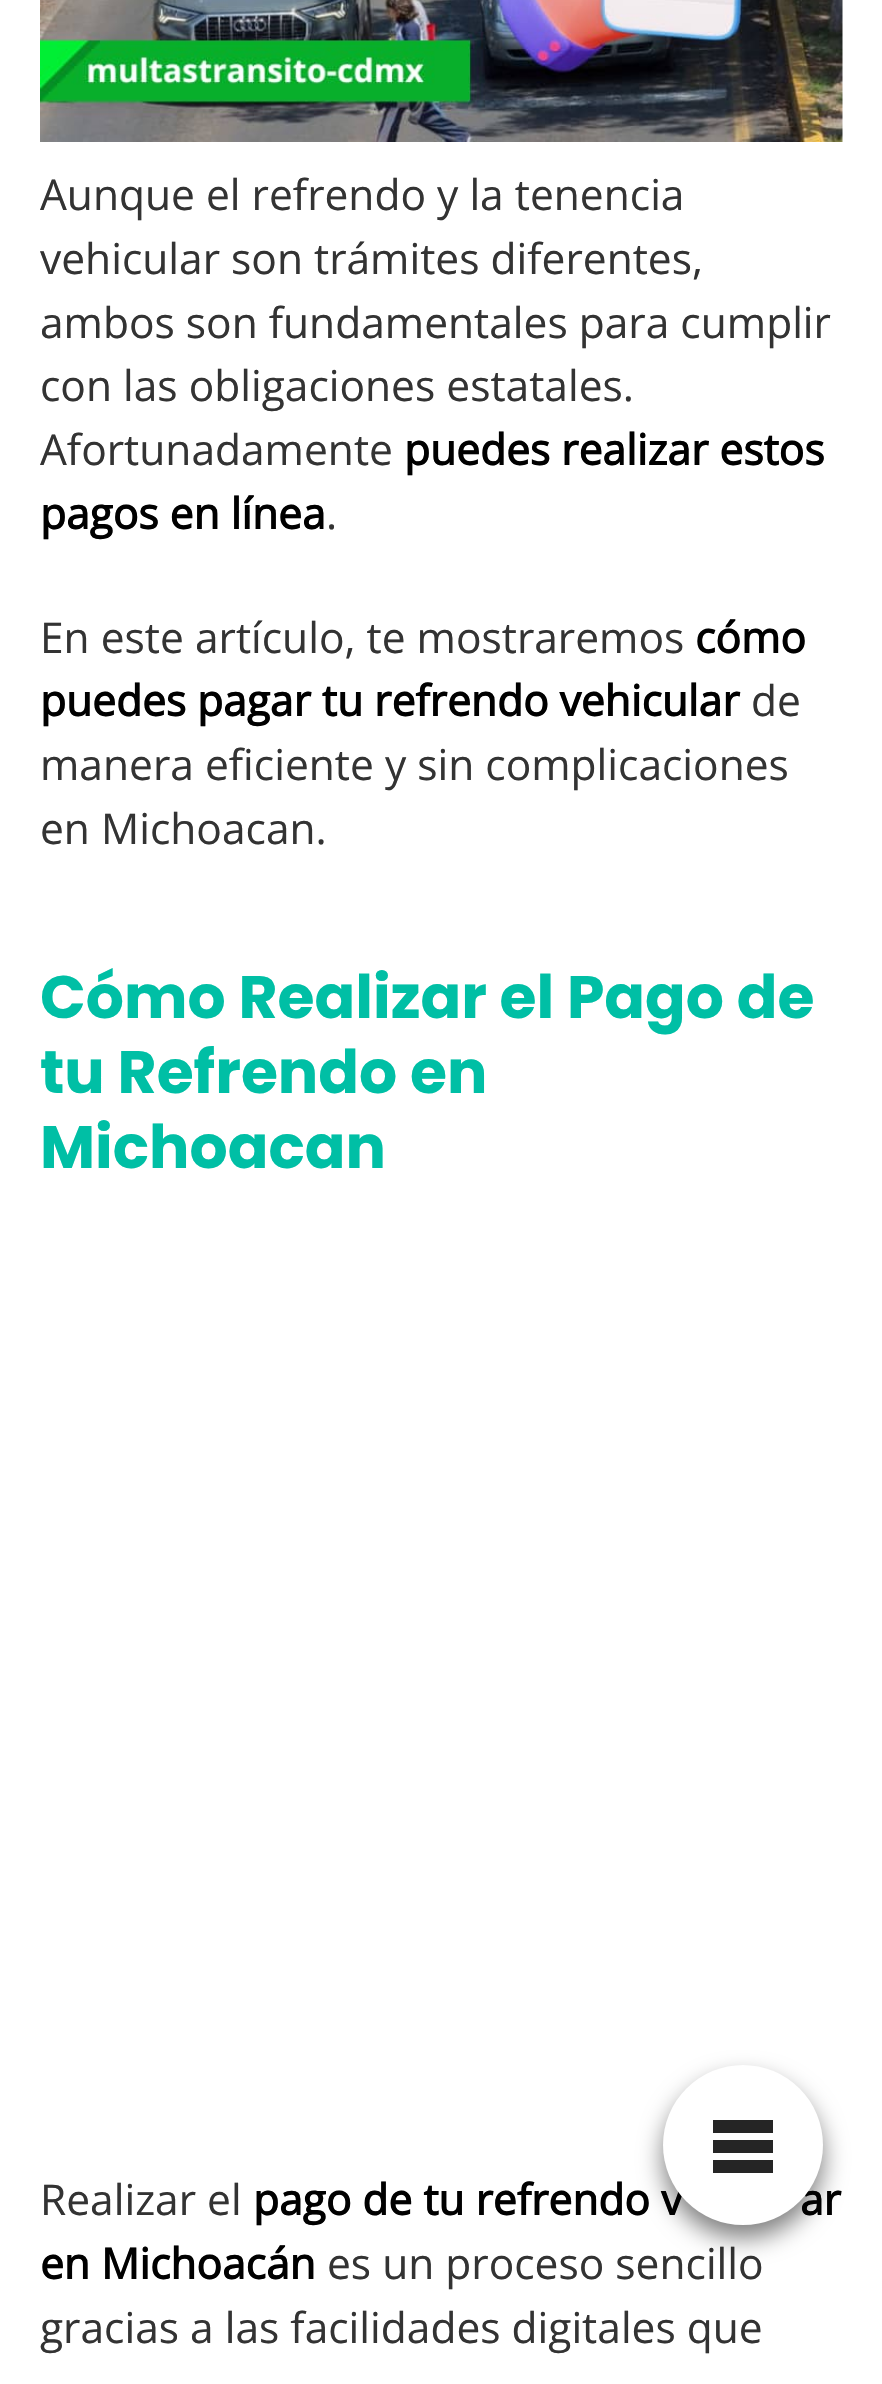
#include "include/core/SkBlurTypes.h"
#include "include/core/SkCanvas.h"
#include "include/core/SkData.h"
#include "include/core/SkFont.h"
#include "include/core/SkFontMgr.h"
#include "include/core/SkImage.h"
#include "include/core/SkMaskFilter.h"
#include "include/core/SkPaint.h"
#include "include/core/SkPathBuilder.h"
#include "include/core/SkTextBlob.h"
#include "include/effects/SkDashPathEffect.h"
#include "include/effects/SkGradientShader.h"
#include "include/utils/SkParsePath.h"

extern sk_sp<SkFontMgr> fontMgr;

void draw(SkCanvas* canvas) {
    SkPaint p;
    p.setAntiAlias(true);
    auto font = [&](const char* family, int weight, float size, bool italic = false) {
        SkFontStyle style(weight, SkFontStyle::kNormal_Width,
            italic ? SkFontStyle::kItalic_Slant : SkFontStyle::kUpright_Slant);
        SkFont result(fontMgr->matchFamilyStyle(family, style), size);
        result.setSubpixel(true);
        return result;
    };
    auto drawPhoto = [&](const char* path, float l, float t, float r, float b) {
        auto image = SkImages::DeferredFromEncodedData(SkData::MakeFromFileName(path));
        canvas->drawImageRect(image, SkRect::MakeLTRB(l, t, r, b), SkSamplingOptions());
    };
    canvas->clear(0xFFFFFFFF);
    drawPhoto("media/1.png", 40, 0, 843, 142);
    auto font1 = font("Open Sans", 400, 42.5f);
    p.setColor(0xFF333333);
    {
        const struct { const char* s; float x, y; } items[] = {
            {"Aunque el refrendo y la tenencia", 40, 210},
            {"vehicular son trámites diferentes,", 40, 274},
            {"ambos son fundamentales para cumplir", 40, 338},
            {"con las obligaciones estatales.", 40, 401},
            {"Afortunadamente", 40, 465},
        };
        for (auto [s, x, y] : items) {
            canvas->drawString(s, x, y, font1, p);
        }
    }
    auto font2 = font("Open Sans", 700, 42.5f);
    p.setColor(0xFF000000);
    canvas->drawString("puedes realizar estos", 404, 465, font2, p);
    canvas->drawString("pagos en línea", 40, 529, font2, p);
    p.setColor(0xFF333333);
    canvas->drawString(".", 326, 529, font1, p);
    canvas->drawString("En este artículo, te mostraremos", 40, 653, font1, p);
    p.setColor(0xFF000000);
    canvas->drawString("cómo", 695, 653, font2, p);
    canvas->drawString("puedes pagar tu refrendo vehicular", 40, 716, font2, p);
    p.setColor(0xFF333333);
    {
        const struct { const char* s; float x, y; } items[] = {
            {"de", 751, 716},
            {"manera eficiente y sin complicaciones", 40, 780},
            {"en Michoacan.", 40, 844},
        };
        for (auto [s, x, y] : items) {
            canvas->drawString(s, x, y, font1, p);
        }
    }
    auto font3 = font("Poppins", 700, 60);
    p.setColor(0xFF00BFA5);
    {
        const struct { const char* s; float x, y; } items[] = {
            {"Cómo Realizar el Pago de", 40, 1018},
            {"tu Refrendo en", 40, 1093},
            {"Michoacan", 40, 1168},
        };
        for (auto [s, x, y] : items) {
            canvas->drawString(s, x, y, font3, p);
        }
    }
    p.setColor(0xFF333333);
    canvas->drawString("Realizar el", 40, 2215, font1, p);
    p.setColor(0xFF000000);
    {
        const struct { const char* s; float x, y; } items[] = {
            {"pago de tu refrendo v", 253, 2215},
            {"ar", 800, 2215},
            {"en Michoacán", 40, 2279},
        };
        for (auto [s, x, y] : items) {
            canvas->drawString(s, x, y, font2, p);
        }
    }
    p.setColor(0xFF333333);
    canvas->drawString("es un proceso sencillo", 327, 2279, font1, p);
    canvas->drawString("gracias a las facilidades digitales que", 40, 2343, font1, p);
    p.setColor(0x80000000);
    p.setMaskFilter(SkMaskFilter::MakeBlur(kNormal_SkBlurStyle, 12.5f));
    canvas->drawRoundRect(SkRect::MakeLTRB(663, 2078, 823, 2238), 80, 80, p);
    p.setMaskFilter(nullptr);
    p.setColor(0xFFFFFFFF);
    canvas->drawCircle(743, 2145, 80, p);
    {
        const struct { float l, t, r, b; SkColor color; } items[] = {
            {713, 2140, 773, 2153, 0xFF252525},
            {713, 2120, 773, 2133, 0xFF252525},
            {713, 2160, 773, 2173, 0xFF252525},
        };
        for (auto [l, t, r, b, color] : items) {
            p.setColor(color);
            canvas->drawRect(SkRect::MakeLTRB(l, t, r, b), p);
        }
    }
}
